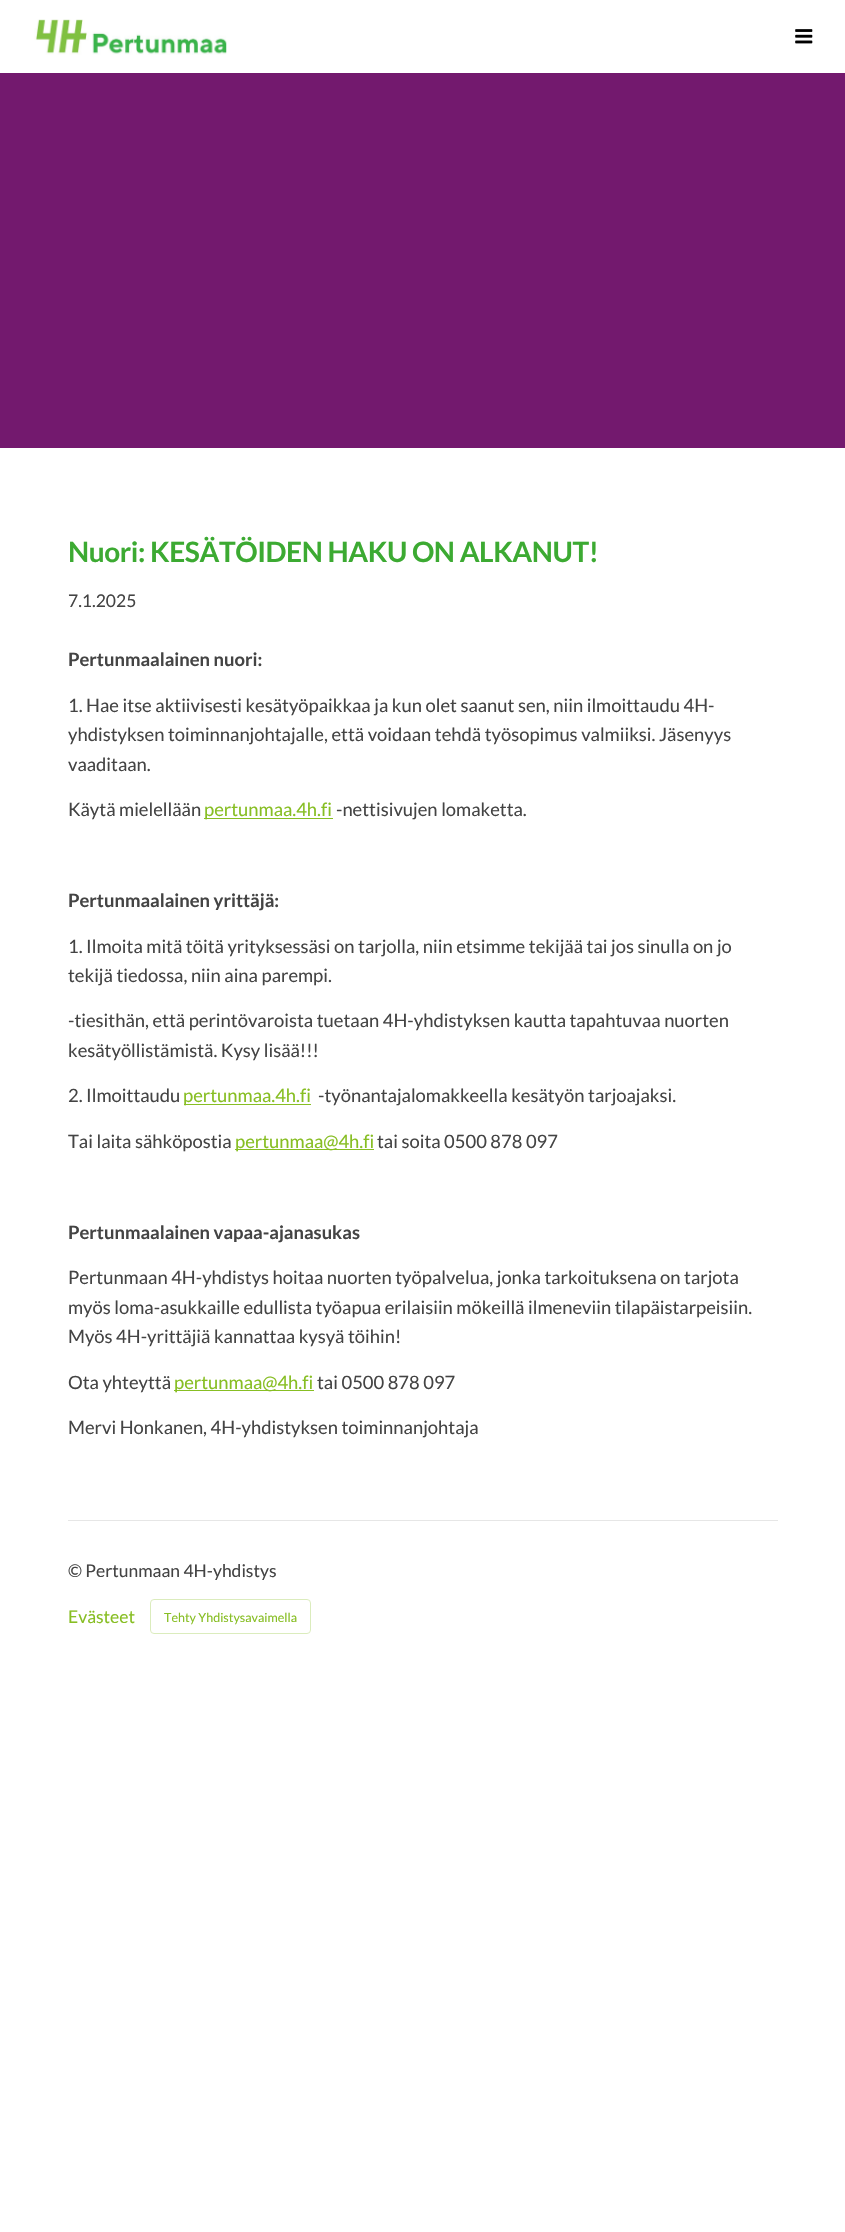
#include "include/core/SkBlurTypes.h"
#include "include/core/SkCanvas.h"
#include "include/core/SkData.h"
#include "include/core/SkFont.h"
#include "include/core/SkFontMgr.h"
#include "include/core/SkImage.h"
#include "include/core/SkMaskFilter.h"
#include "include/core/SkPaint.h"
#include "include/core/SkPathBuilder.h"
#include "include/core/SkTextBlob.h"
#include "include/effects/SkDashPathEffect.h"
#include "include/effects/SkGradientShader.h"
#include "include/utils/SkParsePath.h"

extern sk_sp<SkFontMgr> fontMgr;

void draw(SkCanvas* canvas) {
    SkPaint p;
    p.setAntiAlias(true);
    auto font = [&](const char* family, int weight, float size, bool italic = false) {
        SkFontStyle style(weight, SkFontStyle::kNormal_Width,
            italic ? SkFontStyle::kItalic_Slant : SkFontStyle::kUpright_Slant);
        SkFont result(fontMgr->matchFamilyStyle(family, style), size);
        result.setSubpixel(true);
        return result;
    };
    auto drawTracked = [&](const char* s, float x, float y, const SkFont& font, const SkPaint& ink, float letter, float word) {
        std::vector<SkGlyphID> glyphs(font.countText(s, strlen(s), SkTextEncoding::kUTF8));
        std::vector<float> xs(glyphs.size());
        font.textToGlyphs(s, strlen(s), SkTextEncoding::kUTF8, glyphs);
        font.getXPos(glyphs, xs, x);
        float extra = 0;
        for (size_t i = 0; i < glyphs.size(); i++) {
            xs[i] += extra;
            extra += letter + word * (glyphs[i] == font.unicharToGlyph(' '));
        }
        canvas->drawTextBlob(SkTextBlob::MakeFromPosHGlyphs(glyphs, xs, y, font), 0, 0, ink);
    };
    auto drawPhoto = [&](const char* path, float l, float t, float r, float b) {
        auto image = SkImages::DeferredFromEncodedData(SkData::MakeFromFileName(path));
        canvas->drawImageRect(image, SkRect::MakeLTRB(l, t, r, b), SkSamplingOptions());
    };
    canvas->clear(0xFFFFFFFF);
    drawPhoto("media/1.png", 34, 19, 227, 55);
    drawPhoto("media/2.png", 795, 29, 813, 44);
    p.setColor(0xFF73196E);
    canvas->drawRect(SkRect::MakeLTRB(0, 73, 845, 448), p);
    auto font1 = font("Lato", 700, 28);
    p.setColor(0xFF3CAA32);
    drawTracked("Nuori: KESÄTÖIDEN HAKU ON ALKANUT!", 68, 562, font1, p, -0.4f, 0);
    auto font2 = font("Lato", 400, 17.5f);
    p.setColor(0xFF444444);
    canvas->drawString("7.1.2025", 68, 607, font2, p);
    auto font3 = font("Lato", 700, 18.4f);
    canvas->drawString("Pertunmaalainen nuori:", 68, 666, font3, p);
    auto font4 = font("Lato", 400, 18.4f);
    {
        const struct { const char* s; float x, y; } items[] = {
            {"1. Hae itse aktiivisesti kesätyöpaikkaa ja kun olet saanut sen, niin ilmoittaudu 4H-", 68, 712},
            {"yhdistyksen toiminnanjohtajalle, että voidaan tehdä työsopimus valmiiksi. Jäsenyys", 68, 741},
            {"vaaditaan.", 68, 771},
            {"Käytä mielellään", 68, 816},
        };
        for (auto [s, x, y] : items) {
            canvas->drawString(s, x, y, font4, p);
        }
    }
    p.setColor(0xFF87BE23);
    canvas->drawRect(SkRect::MakeLTRB(204, 818, 333, 819), p);
    canvas->drawString("pertunmaa.4h.fi", 204, 816, font4, p);
    p.setColor(0xFF444444);
    canvas->drawString("-nettisivujen lomaketta.", 336, 816, font4, p);
    canvas->drawString("Pertunmaalainen yrittäjä:", 68, 907, font3, p);
    {
        const struct { const char* s; float x, y; } items[] = {
            {"1. Ilmoita mitä töitä yrityksessäsi on tarjolla, niin etsimme tekijää tai jos sinulla on jo", 68, 953},
            {"tekijä tiedossa, niin aina parempi.", 68, 982},
            {"-tiesithän, että perintövaroista tuetaan 4H-yhdistyksen kautta tapahtuvaa nuorten", 68, 1027},
            {"kesätyöllistämistä. Kysy lisää!!!", 68, 1057},
            {"2. Ilmoittaudu", 68, 1102},
        };
        for (auto [s, x, y] : items) {
            canvas->drawString(s, x, y, font4, p);
        }
    }
    p.setColor(0xFF87BE23);
    canvas->drawRect(SkRect::MakeLTRB(184, 1104, 311, 1105), p);
    canvas->drawString("pertunmaa.4h.fi", 183, 1102, font4, p);
    p.setColor(0xFF444444);
    canvas->drawString("-työnantajalomakkeella kesätyön tarjoajaksi.", 318, 1102, font4, p);
    canvas->drawString("Tai laita sähköpostia", 68, 1148, font4, p);
    p.setColor(0xFF87BE23);
    canvas->drawRect(SkRect::MakeLTRB(235, 1149, 374, 1150), p);
    canvas->drawString("pertunmaa@4h.fi", 235, 1148, font4, p);
    p.setColor(0xFF444444);
    canvas->drawString("tai soita 0500 878 097", 377, 1148, font4, p);
    canvas->drawString("Pertunmaalainen vapaa-ajanasukas", 68, 1239, font3, p);
    {
        const struct { const char* s; float x, y; } items[] = {
            {"Pertunmaan 4H-yhdistys hoitaa nuorten työpalvelua, jonka tarkoituksena on tarjota", 68, 1284},
            {"myös loma-asukkaille edullista työapua erilaisiin mökeillä ilmeneviin tilapäistarpeisiin.", 68, 1314},
            {"Myös 4H-yrittäjiä kannattaa kysyä töihin!", 68, 1343},
            {"Ota yhteyttä", 68, 1389},
        };
        for (auto [s, x, y] : items) {
            canvas->drawString(s, x, y, font4, p);
        }
    }
    p.setColor(0xFF87BE23);
    canvas->drawRect(SkRect::MakeLTRB(174, 1390, 314, 1391), p);
    canvas->drawString("pertunmaa@4h.fi", 174, 1389, font4, p);
    p.setColor(0xFF444444);
    canvas->drawString("tai 0500 878 097", 317, 1389, font4, p);
    canvas->drawString("Mervi Honkanen, 4H-yhdistyksen toiminnanjohtaja", 68, 1434, font4, p);
    p.setColor(0xFFE6E6E6);
    canvas->drawRect(SkRect::MakeLTRB(68, 1520, 778, 1521), p);
    p.setColor(0xFF444444);
    canvas->drawString("© Pertunmaan 4H-yhdistys", 68, 1577, font2, p);
    p.setColor(0xFF87BE23);
    canvas->drawString("Evästeet", 68, 1623, font2, p);
    p.setStyle(SkPaint::kStroke_Style);
    p.setStrokeWidth(1);
    p.setColor(0xFFDBECBD);
    canvas->drawRoundRect(SkRect::MakeLTRB(150.5f, 1599.5f, 310.5f, 1633.5f), 3.5f, 3.5f, p);
    auto font5 = font("Lato", 400, 12.5f);
    p.setStyle(SkPaint::kFill_Style);
    p.setColor(0xFF87BE23);
    canvas->drawString("Tehty Yhdistysavaimella", 164, 1622, font5, p);
}
